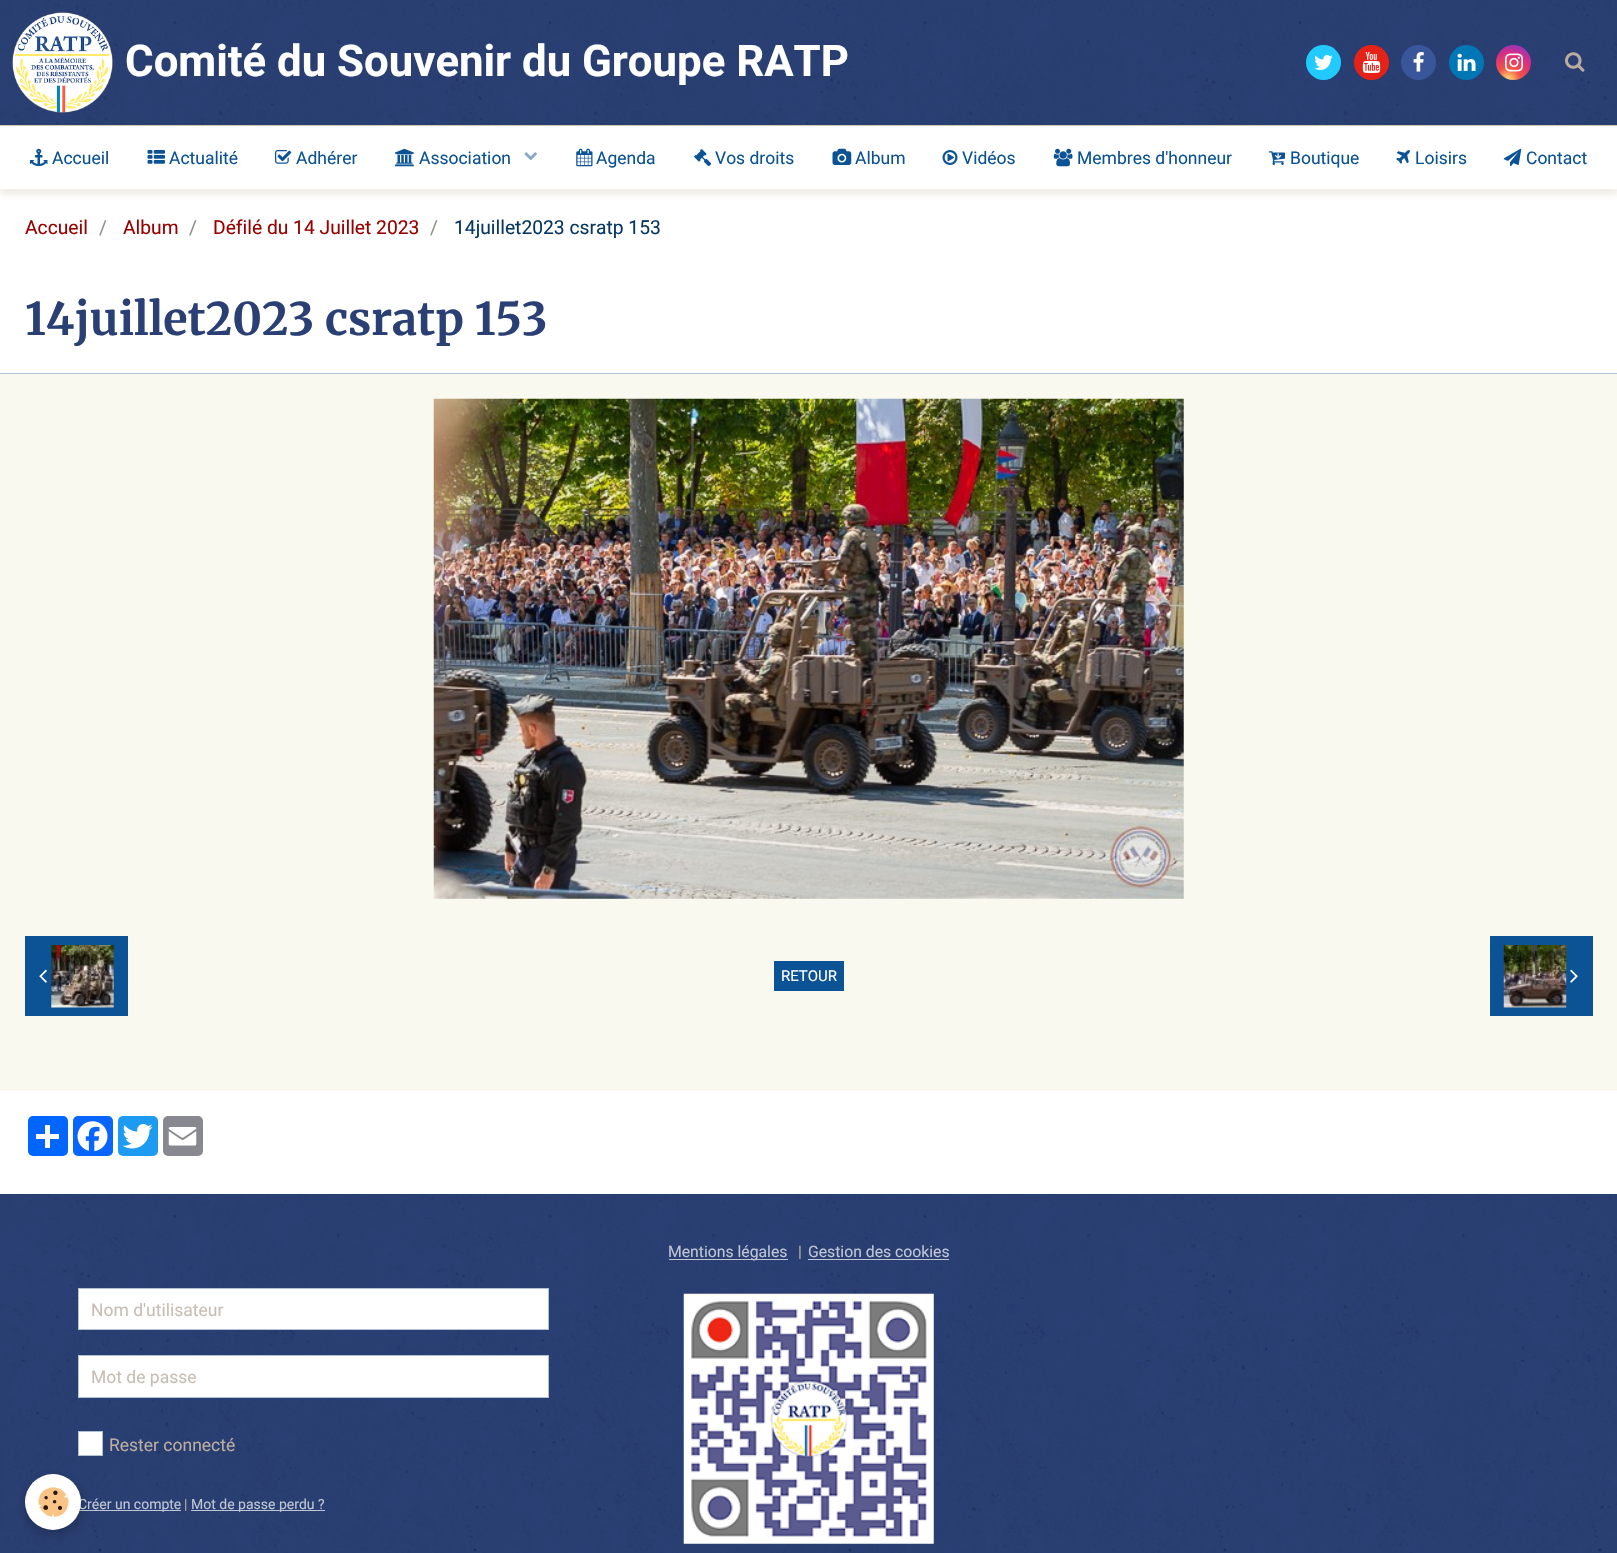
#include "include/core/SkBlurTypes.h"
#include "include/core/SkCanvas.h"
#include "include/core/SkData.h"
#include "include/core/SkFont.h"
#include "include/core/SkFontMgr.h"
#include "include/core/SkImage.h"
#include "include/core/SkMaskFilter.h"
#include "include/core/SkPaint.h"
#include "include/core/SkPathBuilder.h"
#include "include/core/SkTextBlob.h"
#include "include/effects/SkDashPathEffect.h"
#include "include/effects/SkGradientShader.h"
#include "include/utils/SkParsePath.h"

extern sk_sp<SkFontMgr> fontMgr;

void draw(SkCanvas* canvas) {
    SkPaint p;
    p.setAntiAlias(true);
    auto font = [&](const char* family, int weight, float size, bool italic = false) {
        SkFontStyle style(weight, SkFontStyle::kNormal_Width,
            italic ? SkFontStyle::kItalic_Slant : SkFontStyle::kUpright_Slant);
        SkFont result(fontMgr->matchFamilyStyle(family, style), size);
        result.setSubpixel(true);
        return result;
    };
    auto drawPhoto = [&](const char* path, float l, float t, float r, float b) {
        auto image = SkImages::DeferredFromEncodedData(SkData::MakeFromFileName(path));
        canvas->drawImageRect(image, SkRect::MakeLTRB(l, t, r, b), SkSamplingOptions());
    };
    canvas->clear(0xFFFAF9EF);
    p.setColor(0xFFFFFFFF);
    canvas->drawRect(SkRect::MakeLTRB(0, 189, 1617, 373), p);
    p.setColor(0x4DCDC8B1);
    p.setMaskFilter(SkMaskFilter::MakeBlur(kNormal_SkBlurStyle, 3));
    canvas->drawRect(SkRect::MakeLTRB(0, 133, 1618, 195), p);
    p.setMaskFilter(nullptr);
    p.setColor(0xFF2A4075);
    canvas->drawRect(SkRect::MakeLTRB(0, 0, 1617, 125), p);
    p.setColor(0xFFFFFFFF);
    canvas->drawRect(SkRect::MakeLTRB(0, 126, 1617, 189), p);
    drawPhoto("media/1.png", 0, 0, 1617, 127);
    p.setColor(0xFFCDC8B1);
    canvas->drawRect(SkRect::MakeLTRB(0, 125, 1617, 126), p);
    drawPhoto("media/2.png", 12, 12, 113, 113);
    auto font1 = font("Roboto", 700, 43.75f);
    p.setColor(0xFFFFFFFF);
    canvas->drawString("Comité du Souvenir du Groupe RATP", 125, 76, font1, p);
    p.setColor(0xFF22CBFF);
    canvas->drawCircle(1323.5f, 62.5f, 17.5f, p);
    drawPhoto("media/3.png", 1314, 55, 1333, 70);
    p.setColor(0xFFE62117);
    canvas->drawCircle(1371.5f, 62.5f, 17.5f, p);
    drawPhoto("media/4.png", 1362, 52, 1381, 73);
    p.setColor(0xFF385699);
    canvas->drawCircle(1418.5f, 62.5f, 17.5f, p);
    drawPhoto("media/5.png", 1413, 52, 1424, 72);
    p.setColor(0xFF0077B5);
    canvas->drawCircle(1466.5f, 62.5f, 17.5f, p);
    drawPhoto("media/6.png", 1457, 53, 1476, 71);
    {
        const SkColor colors[] = {0xFFFED373, 0xFFF15245, 0xFFD92E7F, 0xFF9B36B7, 0xFF515ECF};
        const float stops[] = {0.04f, 0.3f, 0.62f, 0.85f, 1};
        p.setShader(SkGradientShader::MakeRadial({1508, 80}, 42, colors, stops, 5, SkTileMode::kClamp));
        p.setAlpha(255);
    }
    canvas->drawCircle(1513.5f, 62.5f, 17.5f, p);
    drawPhoto("media/7.png", 1505, 53, 1523, 72);
    drawPhoto("media/8.png", 1565, 52, 1585, 72);
    drawPhoto("media/9.png", 30, 148, 48, 167);
    auto font2 = font("Roboto", 400, 17.5f);
    p.setShader(nullptr);
    p.setColor(0xFF0B5394);
    canvas->drawString("Accueil", 52, 164, font2, p);
    drawPhoto("media/10.png", 147, 150, 165, 164);
    canvas->drawString("Actualité", 169, 164, font2, p);
    drawPhoto("media/11.png", 275, 150, 292, 164);
    canvas->drawString("Adhérer", 296, 164, font2, p);
    drawPhoto("media/12.png", 395, 148, 414, 167);
    canvas->drawString("Association", 419, 164, font2, p);
    drawPhoto("media/13.png", 524, 152, 537, 161);
    drawPhoto("media/14.png", 576, 148, 593, 167);
    canvas->drawString("Agenda", 596, 164, font2, p);
    drawPhoto("media/15.png", 694, 149, 711, 166);
    canvas->drawString("Vos droits", 715, 164, font2, p);
    drawPhoto("media/16.png", 832, 148, 852, 165);
    canvas->drawString("Album", 855, 164, font2, p);
    drawPhoto("media/17.png", 942, 150, 958, 165);
    canvas->drawString("Vidéos", 962, 164, font2, p);
    drawPhoto("media/18.png", 1053, 148, 1073, 167);
    canvas->drawString("Membres d'honneur", 1077, 164, font2, p);
    drawPhoto("media/19.png", 1268, 151, 1285, 165);
    canvas->drawString("Boutique", 1290, 164, font2, p);
    drawPhoto("media/20.png", 1396, 150, 1410, 164);
    canvas->drawString("Loisirs", 1415, 164, font2, p);
    drawPhoto("media/21.png", 1503, 148, 1522, 167);
    canvas->drawString("Contact", 1526, 164, font2, p);
    auto font3 = font("Roboto", 400, 19.25f);
    p.setColor(0xFF990000);
    canvas->drawString("Accueil", 25, 234, font3, p);
    p.setColor(0xFF909089);
    canvas->drawString("/", 99, 234, font3, p);
    p.setColor(0xFF990000);
    canvas->drawString("Album", 123, 234, font3, p);
    p.setColor(0xFF909089);
    canvas->drawString("/", 189, 234, font3, p);
    p.setColor(0xFF990000);
    canvas->drawString("Défilé du 14 Juillet 2023", 213, 234, font3, p);
    p.setColor(0xFF909089);
    canvas->drawString("/", 430, 234, font3, p);
    p.setColor(0xFF073763);
    canvas->drawString("14juillet2023 csratp 153", 454, 234, font3, p);
    p.setColor(0xFFAFC2D3);
    canvas->drawRect(SkRect::MakeLTRB(0, 373, 1617, 374), p);
    auto font4 = font("Merriweather", 700, 45);
    p.setColor(0xFF2A4075);
    canvas->drawString("14juillet2023 csratp 153", 25, 335, font4, p);
    drawPhoto("media/22.png", 433, 398, 1184, 899);
    p.setColor(0xFF0B5394);
    canvas->drawRect(SkRect::MakeLTRB(25, 936, 128, 1016), p);
    drawPhoto("media/23.png", 39, 969, 47, 983);
    drawPhoto("media/24.png", 51, 945, 114, 1008);
    canvas->drawRect(SkRect::MakeLTRB(774, 961, 844, 991), p);
    auto font5 = font("Roboto", 400, 15);
    p.setColor(0xFFFFFFFF);
    canvas->drawString("RETOUR", 781, 981, font5, p);
    p.setColor(0xFF0B5394);
    canvas->drawRect(SkRect::MakeLTRB(1490, 936, 1593, 1016), p);
    drawPhoto("media/25.png", 1503, 945, 1567, 1008);
    drawPhoto("media/26.png", 1570, 969, 1578, 983);
    p.setColor(0xFFFFFFFF);
    canvas->drawRect(SkRect::MakeLTRB(0, 1091, 1617, 1194), p);
    p.setColor(0xFF0166FF);
    canvas->drawRoundRect(SkRect::MakeLTRB(28, 1116, 68, 1156), 5, 5, p);
    p.setColor(0xFFFFFFFF);
    canvas->drawRect(SkRect::MakeLTRB(45, 1125, 50, 1148), p);
    canvas->drawRect(SkRect::MakeLTRB(36, 1134, 59, 1139), p);
    p.setColor(0xFF0866FF);
    canvas->drawRoundRect(SkRect::MakeLTRB(73, 1116, 113, 1156), 5, 5, p);
    drawPhoto("media/27.png", 77, 1121, 108, 1152);
    p.setColor(0xFF1D9BF0);
    canvas->drawRoundRect(SkRect::MakeLTRB(118, 1116, 158, 1156), 5, 5, p);
    drawPhoto("media/28.png", 122, 1124, 153, 1149);
    p.setColor(0xFF888990);
    canvas->drawRoundRect(SkRect::MakeLTRB(163, 1116, 203, 1156), 5, 5, p);
    drawPhoto("media/29.png", 168, 1127, 197, 1146);
    p.setColor(0xFF2A4075);
    canvas->drawRect(SkRect::MakeLTRB(0, 1194, 1617, 1553), p);
    drawPhoto("media/31.png", 0, 1194, 1617, 1553);
    p.setColor(0xB3FFFFFF);
    canvas->drawRect(SkRect::MakeLTRB(78, 1510, 181, 1511), p);
    p.setColor(0x3D000000);
    p.setMaskFilter(SkMaskFilter::MakeBlur(kNormal_SkBlurStyle, 6));
    canvas->drawRoundRect(SkRect::MakeLTRB(25, 1478, 81, 1534), 28, 28, p);
    p.setMaskFilter(nullptr);
    auto font6 = font("Roboto", 400, 14);
    p.setColor(0xFFBFC5D5);
    canvas->drawString("Créer un compte", 78, 1509, font6, p);
    p.setColor(0xFFFFFFFF);
    canvas->drawCircle(53, 1502, 28, p);
    drawPhoto("media/30.png", 38, 1487, 69, 1517);
    p.setColor(0xB3FFFFFF);
    canvas->drawRect(SkRect::MakeLTRB(669, 1259, 788, 1260), p);
    auto font7 = font("Roboto", 400, 15.75f);
    p.setColor(0xFFBFC5D5);
    canvas->drawString("Mentions légales", 668, 1257, font7, p);
    p.setColor(0xFFBAADA0);
    canvas->drawString("|", 798, 1257, font7, p);
    p.setColor(0xFFBFC5D5);
    canvas->drawString("Gestion des cookies", 808, 1257, font7, p);
    p.setColor(0xB3FFFFFF);
    canvas->drawRect(SkRect::MakeLTRB(808, 1259, 949, 1260), p);
    p.setColor(0xFFFFFFFF);
    canvas->drawRect(SkRect::MakeLTRB(78.5f, 1288.5f, 548.5f, 1329.5f), p);
    p.setStyle(SkPaint::kStroke_Style);
    p.setStrokeWidth(1);
    p.setColor(0xFFAFC2D3);
    canvas->drawRect(SkRect::MakeLTRB(78.5f, 1288.5f, 548.5f, 1329.5f), p);
    p.setStyle(SkPaint::kFill_Style);
    p.setColor(0xFFC8BDB3);
    canvas->drawString("Nom d'utilisateur", 91, 1316, font2, p);
    p.setColor(0xFFFFFFFF);
    canvas->drawRect(SkRect::MakeLTRB(78.5f, 1355.5f, 548.5f, 1397.5f), p);
    p.setStyle(SkPaint::kStroke_Style);
    p.setColor(0xFFAFC2D3);
    canvas->drawRect(SkRect::MakeLTRB(78.5f, 1355.5f, 548.5f, 1397.5f), p);
    p.setStyle(SkPaint::kFill_Style);
    p.setColor(0xFFC8BDB3);
    canvas->drawString("Mot de passe", 91, 1383, font2, p);
    p.setColor(0xFFFFFFFF);
    canvas->drawRect(SkRect::MakeLTRB(78.5f, 1431.5f, 102.5f, 1455.5f), p);
    p.setStyle(SkPaint::kStroke_Style);
    p.setColor(0xFFAFC2D3);
    canvas->drawRect(SkRect::MakeLTRB(78.5f, 1431.5f, 102.5f, 1455.5f), p);
    p.setStyle(SkPaint::kFill_Style);
    p.setColor(0xFFBAADA0);
    canvas->drawString("Rester connecté", 109, 1451, font2, p);
    canvas->drawString("|", 184, 1509, font6, p);
    p.setColor(0xB3FFFFFF);
    canvas->drawRect(SkRect::MakeLTRB(191, 1510, 325, 1511), p);
    p.setColor(0xFFBFC5D5);
    canvas->drawString("Mot de passe perdu ?", 191, 1509, font6, p);
    drawPhoto("media/32.png", 683, 1293, 934, 1544);
}
